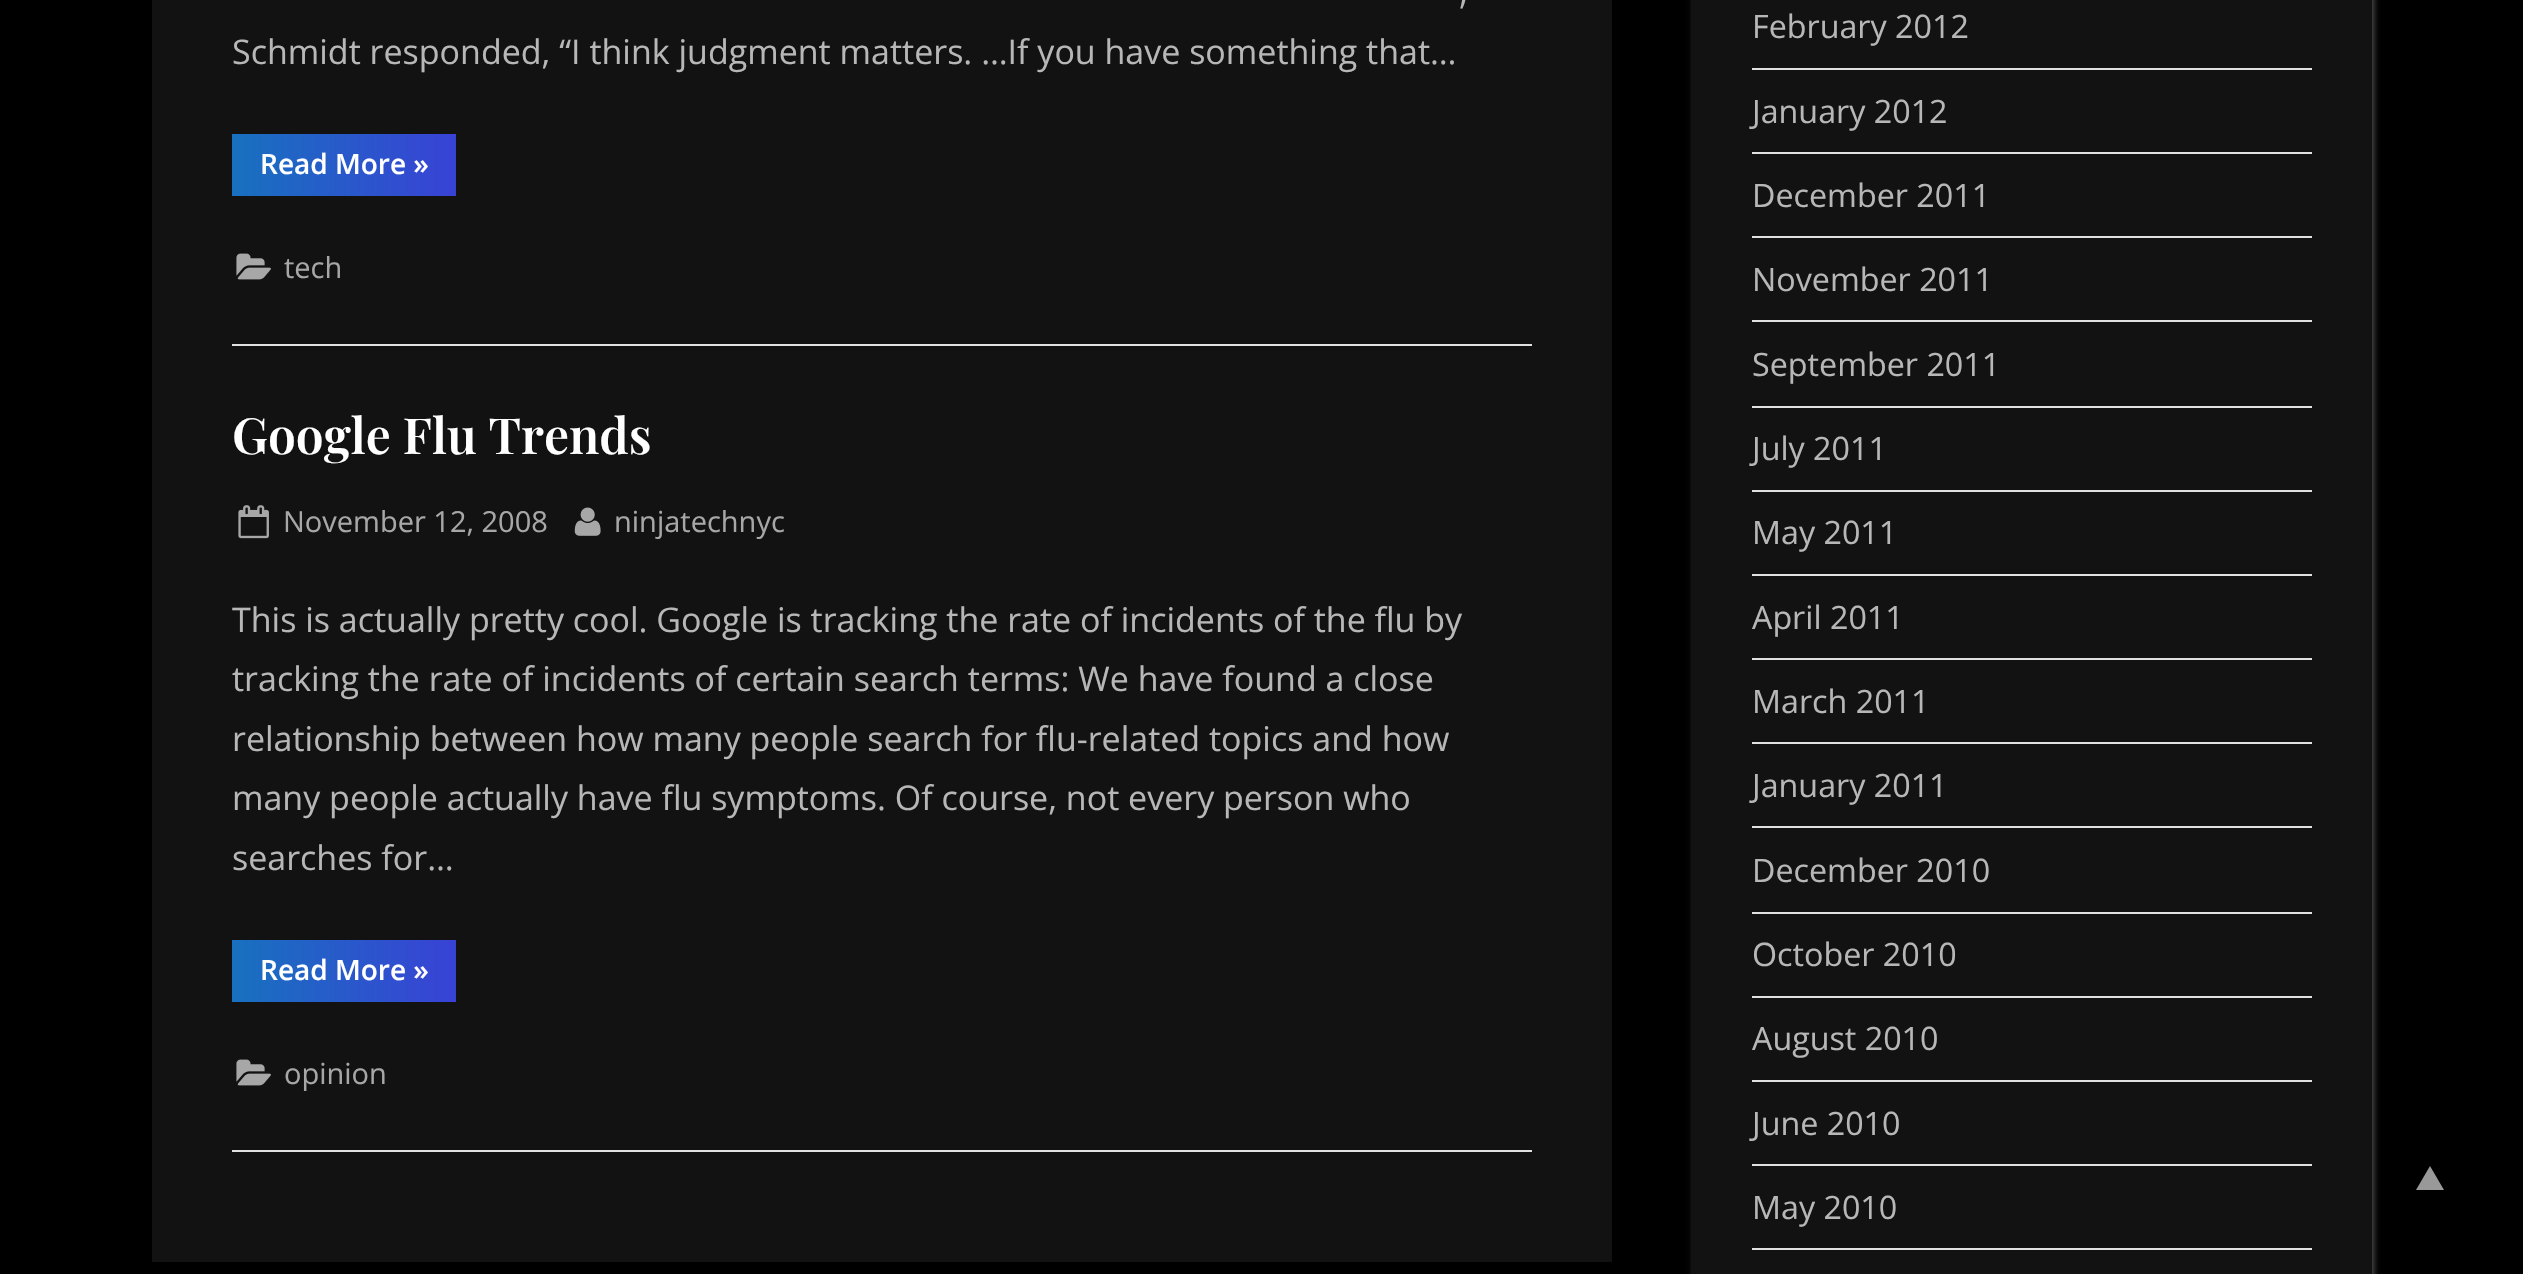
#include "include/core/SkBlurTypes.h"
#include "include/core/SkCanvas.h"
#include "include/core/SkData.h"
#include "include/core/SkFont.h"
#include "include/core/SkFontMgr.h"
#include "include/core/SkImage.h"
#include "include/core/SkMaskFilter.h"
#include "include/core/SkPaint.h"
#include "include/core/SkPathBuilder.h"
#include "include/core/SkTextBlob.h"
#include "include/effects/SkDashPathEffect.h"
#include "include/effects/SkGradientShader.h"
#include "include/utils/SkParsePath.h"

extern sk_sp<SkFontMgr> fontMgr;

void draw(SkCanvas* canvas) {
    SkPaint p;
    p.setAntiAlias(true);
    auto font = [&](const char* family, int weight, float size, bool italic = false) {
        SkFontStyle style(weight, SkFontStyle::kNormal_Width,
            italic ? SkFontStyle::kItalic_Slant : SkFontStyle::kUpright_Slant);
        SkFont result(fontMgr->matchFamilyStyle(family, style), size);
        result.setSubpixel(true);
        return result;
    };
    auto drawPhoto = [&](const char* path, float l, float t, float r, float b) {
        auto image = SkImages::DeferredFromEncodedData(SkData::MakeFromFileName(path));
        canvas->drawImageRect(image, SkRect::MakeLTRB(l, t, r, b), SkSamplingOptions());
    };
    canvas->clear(0xFF000000);
    p.setColor(0xFF121212);
    canvas->drawRect(SkRect::MakeLTRB(152, 0, 1612, 1262), p);
    p.setColor(0xFFE1E1E1);
    canvas->drawRect(SkRect::MakeLTRB(232, 344, 1532, 346), p);
    auto font1 = font("Open Sans", 400, 34);
    p.setColor(0xFFB7B7B7);
    canvas->drawString(",", 1459, 4, font1, p);
    canvas->drawString("Schmidt responded, “I think judgment matters. …If you have something that…", 232, 64, font1, p);
    {
        const SkColor colors[] = {0xFF1871BF, 0xFF3941D6, 0xFF1871BF};
        const float stops[] = {0, 0.51f, 1};
        const SkPoint ends[] = {{232, 165}, {680, 165}};
        p.setShader(SkGradientShader::MakeLinear(ends, colors, stops, 3, SkTileMode::kClamp));
        p.setAlpha(255);
    }
    canvas->drawRect(SkRect::MakeLTRB(232, 134, 456, 196), p);
    auto font2 = font("Open Sans", 600, 28);
    p.setShader(nullptr);
    p.setColor(0xFFFFFFFF);
    canvas->drawString("Read More »", 260, 174, font2, p);
    drawPhoto("media/1.png", 236, 253, 271, 280);
    auto font3 = font("Open Sans", 400, 29);
    p.setColor(0xFFA7A7A7);
    canvas->drawString("tech", 284, 278, font3, p);
    p.setColor(0xFFE1E1E1);
    canvas->drawRect(SkRect::MakeLTRB(232, 1150, 1532, 1152), p);
    auto font4 = font("Playfair Display", 600, 49.75f);
    p.setColor(0xFFFFFFFF);
    canvas->drawString("Google Flu Trends", 232, 454, font4, p);
    drawPhoto("media/2.png", 238, 505, 269, 539);
    p.setColor(0xFFA7A7A7);
    canvas->drawString("November 12, 2008", 283, 532, font3, p);
    drawPhoto("media/3.png", 574, 507, 601, 536);
    canvas->drawString("ninjatechnyc", 614, 532, font3, p);
    p.setColor(0xFFB7B7B7);
    {
        const struct { const char* s; float x, y; } items[] = {
            {"This is actually pretty cool. Google is tracking the rate of incidents of the flu by", 232, 632},
            {"tracking the rate of incidents of certain search terms: We have found a close", 232, 691},
            {"relationship between how many people search for flu-related topics and how", 232, 751},
            {"many people actually have flu symptoms. Of course, not every person who", 232, 810},
            {"searches for…", 232, 870},
        };
        for (auto [s, x, y] : items) {
            canvas->drawString(s, x, y, font1, p);
        }
    }
    {
        const SkColor colors[] = {0xFF1871BF, 0xFF3941D6, 0xFF1871BF};
        const float stops[] = {0, 0.51f, 1};
        const SkPoint ends[] = {{232, 971}, {680, 971}};
        p.setShader(SkGradientShader::MakeLinear(ends, colors, stops, 3, SkTileMode::kClamp));
        p.setAlpha(255);
    }
    canvas->drawRect(SkRect::MakeLTRB(232, 940, 456, 1002), p);
    p.setShader(nullptr);
    p.setColor(0xFFFFFFFF);
    canvas->drawString("Read More »", 260, 980, font2, p);
    drawPhoto("media/1.png", 236, 1059, 271, 1086);
    p.setColor(0xFFA7A7A7);
    canvas->drawString("opinion", 284, 1084, font3, p);
    p.setColor(0x4DFFFFFF);
    p.setMaskFilter(SkMaskFilter::MakeBlur(kNormal_SkBlurStyle, 3));
    canvas->drawRect(SkRect::MakeLTRB(1694, -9, 2374, 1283), p);
    p.setMaskFilter(nullptr);
    p.setColor(0xFF121212);
    canvas->drawRect(SkRect::MakeLTRB(1692, 0, 2372, 1274), p);
    p.setColor(0xFFE1E1E1);
    canvas->drawRect(SkRect::MakeLTRB(1752, 68, 2312, 70), p);
    auto font5 = font("Open Sans", 400, 32.25f);
    p.setColor(0xFFB7B7B7);
    canvas->drawString("February 2012", 1752, 38, font5, p);
    p.setColor(0xFFE1E1E1);
    canvas->drawRect(SkRect::MakeLTRB(1752, 152, 2312, 154), p);
    p.setColor(0xFFB7B7B7);
    canvas->drawString("January 2012", 1752, 123, font5, p);
    p.setColor(0xFFE1E1E1);
    canvas->drawRect(SkRect::MakeLTRB(1752, 236, 2312, 238), p);
    p.setColor(0xFFB7B7B7);
    canvas->drawString("December 2011", 1752, 207, font5, p);
    p.setColor(0xFFE1E1E1);
    canvas->drawRect(SkRect::MakeLTRB(1752, 320, 2312, 322), p);
    p.setColor(0xFFB7B7B7);
    canvas->drawString("November 2011", 1752, 291, font5, p);
    p.setColor(0xFFE1E1E1);
    canvas->drawRect(SkRect::MakeLTRB(1752, 406, 2312, 408), p);
    p.setColor(0xFFB7B7B7);
    canvas->drawString("September 2011", 1752, 376, font5, p);
    p.setColor(0xFFE1E1E1);
    canvas->drawRect(SkRect::MakeLTRB(1752, 490, 2312, 492), p);
    p.setColor(0xFFB7B7B7);
    canvas->drawString("July 2011", 1752, 460, font5, p);
    p.setColor(0xFFE1E1E1);
    canvas->drawRect(SkRect::MakeLTRB(1752, 574, 2312, 576), p);
    p.setColor(0xFFB7B7B7);
    canvas->drawString("May 2011", 1752, 544, font5, p);
    p.setColor(0xFFE1E1E1);
    canvas->drawRect(SkRect::MakeLTRB(1752, 658, 2312, 660), p);
    p.setColor(0xFFB7B7B7);
    canvas->drawString("April 2011", 1752, 629, font5, p);
    p.setColor(0xFFE1E1E1);
    canvas->drawRect(SkRect::MakeLTRB(1752, 742, 2312, 744), p);
    p.setColor(0xFFB7B7B7);
    canvas->drawString("March 2011", 1752, 713, font5, p);
    p.setColor(0xFFE1E1E1);
    canvas->drawRect(SkRect::MakeLTRB(1752, 826, 2312, 828), p);
    p.setColor(0xFFB7B7B7);
    canvas->drawString("January 2011", 1752, 797, font5, p);
    p.setColor(0xFFE1E1E1);
    canvas->drawRect(SkRect::MakeLTRB(1752, 912, 2312, 914), p);
    p.setColor(0xFFB7B7B7);
    canvas->drawString("December 2010", 1752, 882, font5, p);
    p.setColor(0xFFE1E1E1);
    canvas->drawRect(SkRect::MakeLTRB(1752, 996, 2312, 998), p);
    p.setColor(0xFFB7B7B7);
    canvas->drawString("October 2010", 1752, 966, font5, p);
    p.setColor(0xFFE1E1E1);
    canvas->drawRect(SkRect::MakeLTRB(1752, 1080, 2312, 1082), p);
    p.setColor(0xFFB7B7B7);
    canvas->drawString("August 2010", 1752, 1050, font5, p);
    p.setColor(0xFFE1E1E1);
    canvas->drawRect(SkRect::MakeLTRB(1752, 1164, 2312, 1166), p);
    p.setColor(0xFFB7B7B7);
    canvas->drawString("June 2010", 1752, 1135, font5, p);
    p.setColor(0xFFE1E1E1);
    canvas->drawRect(SkRect::MakeLTRB(1752, 1248, 2312, 1250), p);
    p.setColor(0xFFB7B7B7);
    canvas->drawString("May 2010", 1752, 1219, font5, p);
    p.setColor(0xFF999999);
    canvas->drawPath(SkPathBuilder().moveTo(2444, 1190).lineTo(2416, 1190).lineTo(2430, 1166).close().detach(), p);
}
